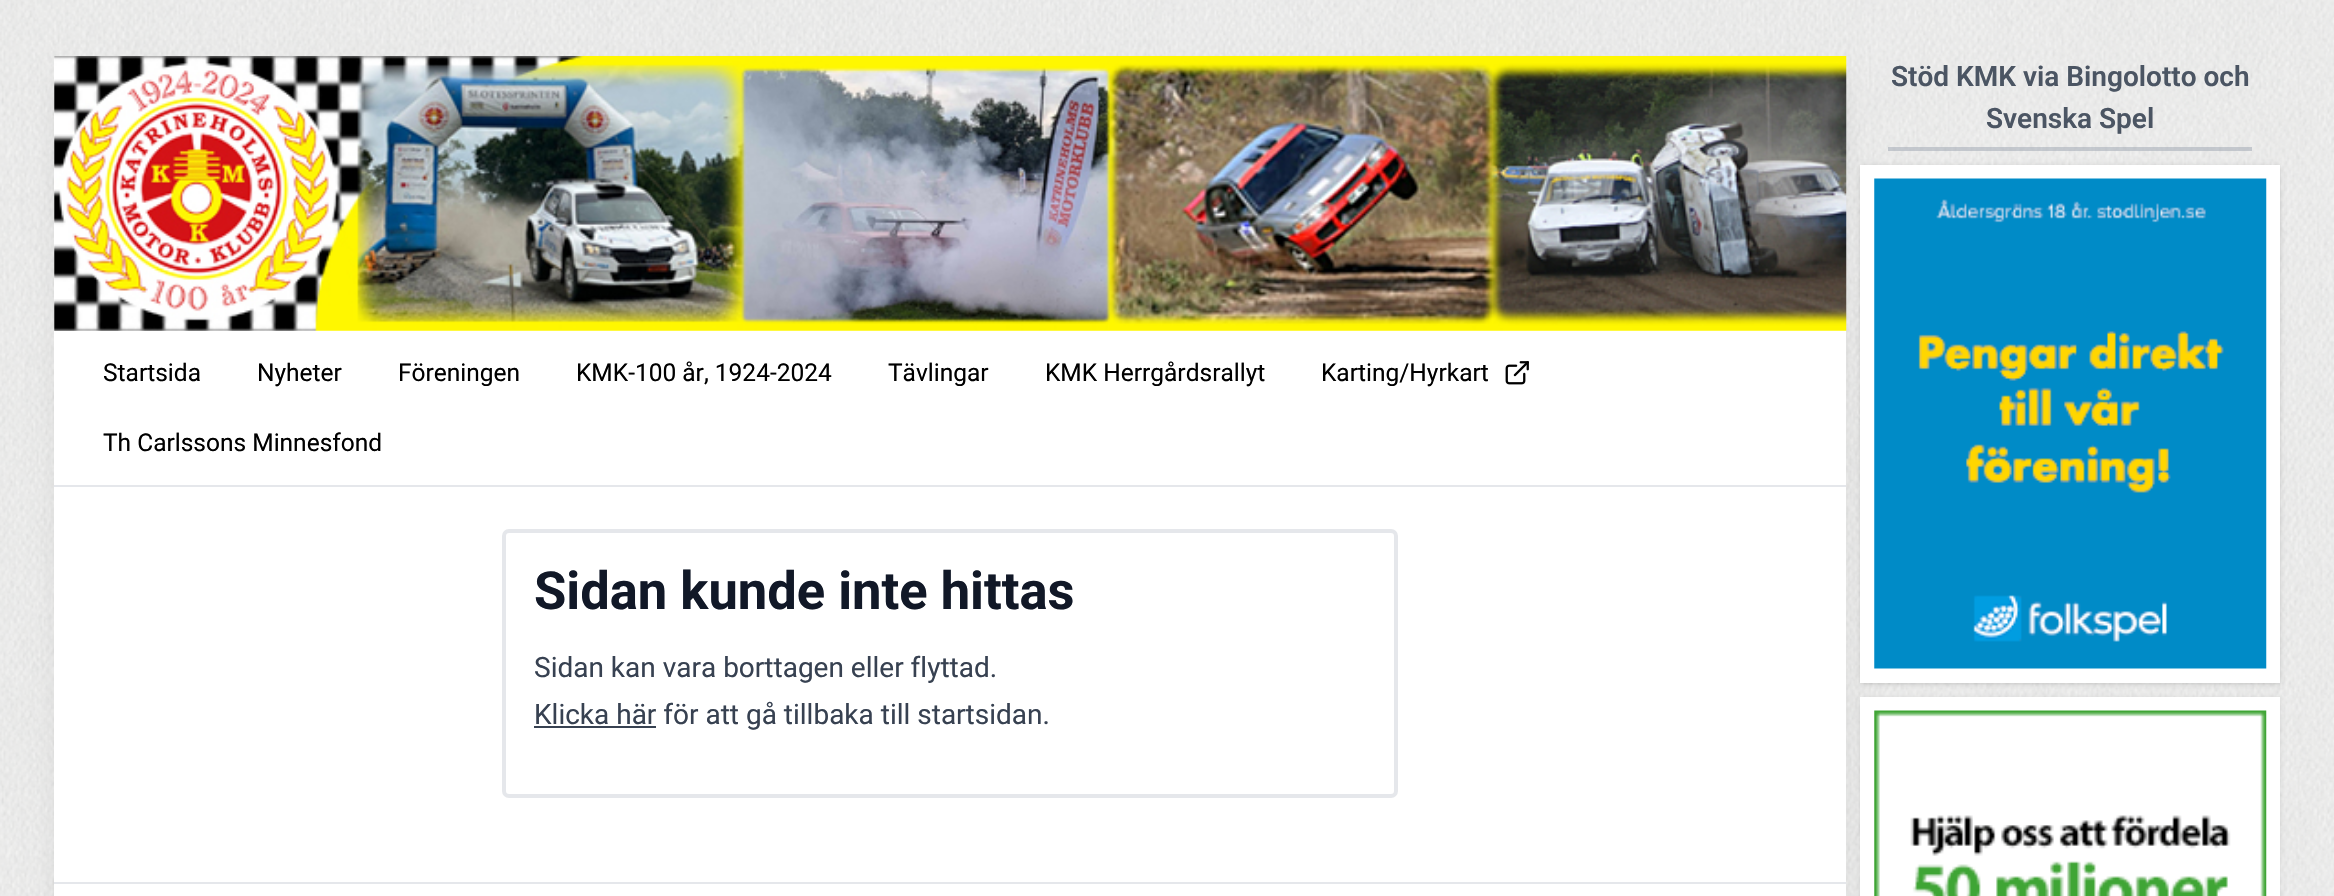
#include "include/core/SkBlurTypes.h"
#include "include/core/SkCanvas.h"
#include "include/core/SkData.h"
#include "include/core/SkFont.h"
#include "include/core/SkFontMgr.h"
#include "include/core/SkImage.h"
#include "include/core/SkMaskFilter.h"
#include "include/core/SkPaint.h"
#include "include/core/SkPathBuilder.h"
#include "include/core/SkTextBlob.h"
#include "include/effects/SkDashPathEffect.h"
#include "include/effects/SkGradientShader.h"
#include "include/utils/SkParsePath.h"

extern sk_sp<SkFontMgr> fontMgr;

void draw(SkCanvas* canvas) {
    SkPaint p;
    p.setAntiAlias(true);
    auto font = [&](const char* family, int weight, float size, bool italic = false) {
        SkFontStyle style(weight, SkFontStyle::kNormal_Width,
            italic ? SkFontStyle::kItalic_Slant : SkFontStyle::kUpright_Slant);
        SkFont result(fontMgr->matchFamilyStyle(family, style), size);
        result.setSubpixel(true);
        return result;
    };
    auto drawPhoto = [&](const char* path, float l, float t, float r, float b) {
        auto image = SkImages::DeferredFromEncodedData(SkData::MakeFromFileName(path));
        canvas->drawImageRect(image, SkRect::MakeLTRB(l, t, r, b), SkSamplingOptions());
    };
    canvas->clear(0xFFFFFFFF);
    drawPhoto("media/1.png", 0, 0, 2334, 896);
    p.setColor(0x809CA3AF);
    canvas->drawRect(SkRect::MakeLTRB(1888, 147, 2252, 151), p);
    auto font1 = font("Roboto", 600, 28);
    p.setColor(0xFF4B5563);
    canvas->drawString("Stöd KMK via Bingolotto och", 1891, 86, font1, p);
    canvas->drawString("Svenska Spel", 1986, 128, font1, p);
    p.setColor(0x1A000000);
    p.setMaskFilter(SkMaskFilter::MakeBlur(kNormal_SkBlurStyle, 2));
    canvas->drawRect(SkRect::MakeLTRB(1862, 168, 2279, 683), p);
    p.setMaskFilter(nullptr);
    p.setMaskFilter(SkMaskFilter::MakeBlur(kNormal_SkBlurStyle, 2.5f));
    canvas->drawRect(SkRect::MakeLTRB(1860, 166, 2280, 684), p);
    p.setMaskFilter(nullptr);
    p.setMaskFilter(SkMaskFilter::MakeBlur(kNormal_SkBlurStyle, 13));
    canvas->drawRect(SkRect::MakeLTRB(60, 79, 1841, 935), p);
    p.setMaskFilter(nullptr);
    p.setColor(0xFFFFFFFF);
    canvas->drawRect(SkRect::MakeLTRB(1860, 165, 2280, 683), p);
    drawPhoto("media/2.png", 1874, 178, 2267, 669);
    p.setColor(0x1A000000);
    p.setMaskFilter(SkMaskFilter::MakeBlur(kNormal_SkBlurStyle, 2.5f));
    canvas->drawRect(SkRect::MakeLTRB(1860, 698, 2280, 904), p);
    p.setMaskFilter(nullptr);
    p.setColor(0xFFFFFFFF);
    canvas->drawRect(SkRect::MakeLTRB(1860, 697, 2280, 896), p);
    drawPhoto("media/3.png", 1874, 710, 2267, 896);
    canvas->drawRect(SkRect::MakeLTRB(54, 56, 1846, 896), p);
    drawPhoto("media/4.png", 54, 56, 1847, 331);
    p.setColor(0xFFE5E7EB);
    canvas->drawRect(SkRect::MakeLTRB(54, 485, 1846, 487), p);
    auto font2 = font("Roboto", 400, 24.5f);
    p.setColor(0xFF000000);
    {
        const struct { const char* s; float x, y; } items[] = {
            {"Startsida", 103, 381},
            {"Nyheter", 257, 381},
            {"Föreningen", 398, 381},
            {"KMK-100 år, 1924-2024", 576, 381},
            {"Tävlingar", 888, 381},
            {"KMK Herrgårdsrallyt", 1045, 381},
            {"Karting/Hyrkart", 1321, 381},
        };
        for (auto [s, x, y] : items) {
            canvas->drawString(s, x, y, font2, p);
        }
    }
    drawPhoto("media/5.png", 1505, 361, 1529, 385);
    canvas->drawString("Th Carlssons Minnesfond", 103, 451, font2, p);
    p.setStyle(SkPaint::kStroke_Style);
    p.setStrokeWidth(4);
    p.setColor(0xFFE5E7EB);
    canvas->drawRoundRect(SkRect::MakeLTRB(504, 531, 1396, 796), 5, 5, p);
    auto font3 = font("Roboto", 700, 52.5f);
    p.setStyle(SkPaint::kFill_Style);
    p.setColor(0xFF111827);
    canvas->drawString("Sidan kunde inte hittas", 534, 609, font3, p);
    auto font4 = font("Roboto", 400, 28);
    p.setColor(0xFF374151);
    canvas->drawString("Sidan kan vara borttagen eller flyttad.", 534, 677, font4, p);
    canvas->drawRect(SkRect::MakeLTRB(534, 726, 656, 728), p);
    canvas->drawString("Klicka här för att gå tillbaka till startsidan.", 534, 724, font4, p);
    p.setColor(0xFFE5E7EB);
    canvas->drawRect(SkRect::MakeLTRB(54, 882, 1846, 884), p);
}
